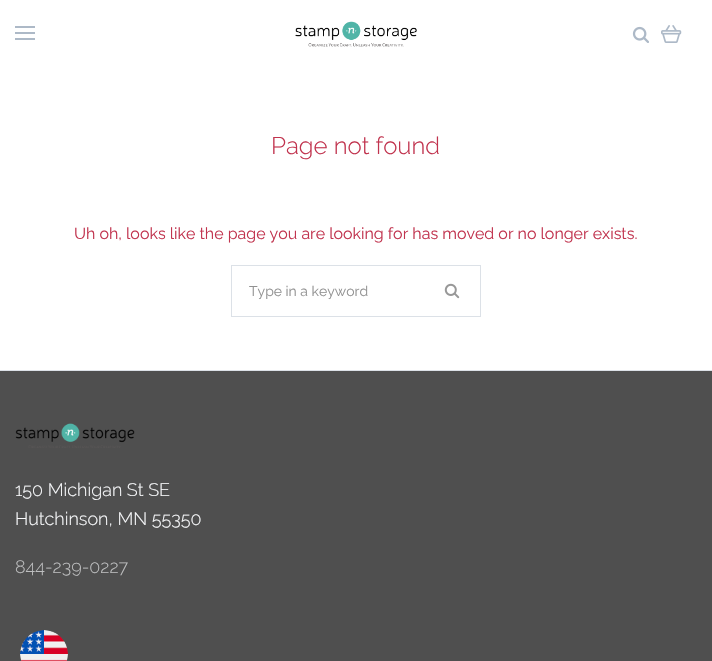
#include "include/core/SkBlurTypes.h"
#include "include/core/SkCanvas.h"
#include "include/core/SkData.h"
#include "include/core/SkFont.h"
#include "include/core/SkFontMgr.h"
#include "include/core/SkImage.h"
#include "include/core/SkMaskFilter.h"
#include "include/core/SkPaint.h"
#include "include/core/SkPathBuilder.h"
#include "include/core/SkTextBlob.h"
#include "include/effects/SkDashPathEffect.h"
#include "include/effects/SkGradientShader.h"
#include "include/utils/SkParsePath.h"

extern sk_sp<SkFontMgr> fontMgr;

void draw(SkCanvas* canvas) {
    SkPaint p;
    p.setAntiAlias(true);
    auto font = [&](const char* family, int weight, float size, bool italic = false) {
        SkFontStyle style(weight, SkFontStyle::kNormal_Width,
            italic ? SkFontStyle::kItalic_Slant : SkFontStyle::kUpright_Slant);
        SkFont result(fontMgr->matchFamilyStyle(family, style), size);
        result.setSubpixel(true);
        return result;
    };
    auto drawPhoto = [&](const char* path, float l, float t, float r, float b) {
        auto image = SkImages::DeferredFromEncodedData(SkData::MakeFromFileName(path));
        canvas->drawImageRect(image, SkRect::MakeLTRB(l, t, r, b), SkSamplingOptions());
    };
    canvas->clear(0xFFFFFFFF);
    {
        const struct { float l, t, r, b; SkColor color; } items[] = {
            {15, 32, 35, 34, 0xFFADB9C7},
            {15, 26, 35, 28, 0xFFADB9C7},
            {15, 38, 35, 40, 0xFFADB9C7},
        };
        for (auto [l, t, r, b, color] : items) {
            p.setColor(color);
            canvas->drawRect(SkRect::MakeLTRB(l, t, r, b), p);
        }
    }
    drawPhoto("media/1.png", 295, 21, 417, 47);
    drawPhoto("media/2.png", 632, 26, 649, 43);
    drawPhoto("media/3.png", 661, 25, 682, 43);
    auto font1 = font("Raleway", 300, 24);
    p.setColor(0xFFC1334E);
    canvas->drawString("Page not found", 271, 154, font1, p);
    auto font2 = font("Raleway", 400, 16);
    canvas->drawString("Uh oh, looks like the page you are looking for has moved or no longer exists.", 74, 239, font2, p);
    p.setStyle(SkPaint::kStroke_Style);
    p.setStrokeWidth(1);
    p.setColor(0xFFDCE1E7);
    canvas->drawRect(SkRect::MakeLTRB(231.5f, 265.5f, 480.5f, 316.5f), p);
    auto font3 = font("Raleway", 400, 14);
    p.setStyle(SkPaint::kFill_Style);
    p.setColor(0xFF919191);
    canvas->drawString("Type in a keyword", 249, 296, font3, p);
    drawPhoto("media/4.png", 444, 283, 460, 299);
    p.setColor(0xFF4F4F4F);
    canvas->drawRect(SkRect::MakeLTRB(0, 371, 712, 661), p);
    p.setColor(0xFFDCE1E7);
    canvas->drawRect(SkRect::MakeLTRB(0, 370, 712, 371), p);
    drawPhoto("media/5.png", 15, 423, 135, 448);
    auto font4 = font("Raleway", 300, 18);
    p.setColor(0xFFF8F9FB);
    canvas->drawString("150 Michigan St SE", 15, 496, font4, p);
    canvas->drawString("Hutchinson, MN 55350", 15, 525, font4, p);
    p.setColor(0xFFBDBEBF);
    canvas->drawString("844-239-0227", 15, 573, font4, p);
    drawPhoto("media/6.png", 20, 630, 68, 661);
}
